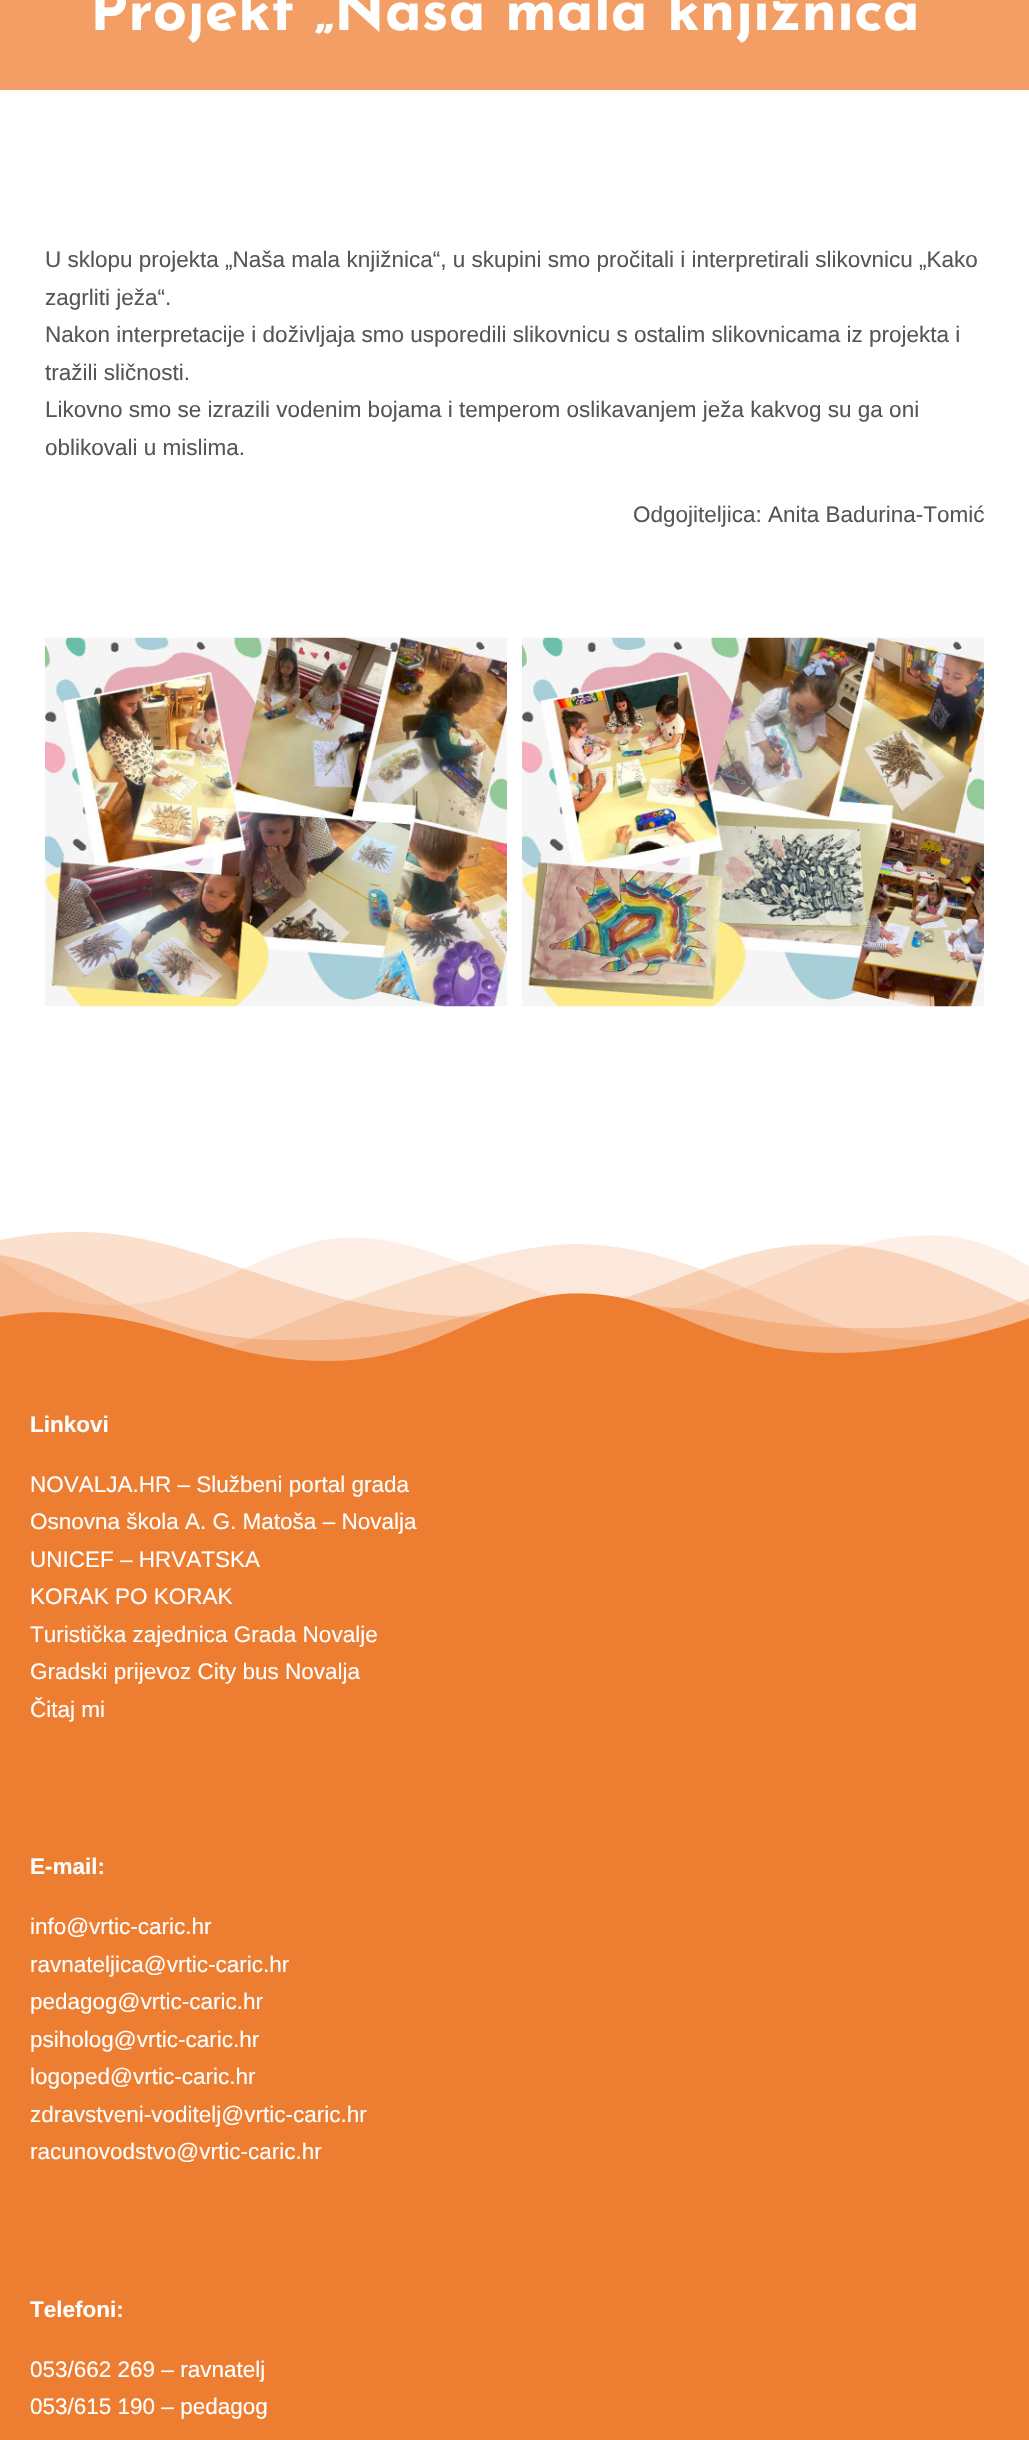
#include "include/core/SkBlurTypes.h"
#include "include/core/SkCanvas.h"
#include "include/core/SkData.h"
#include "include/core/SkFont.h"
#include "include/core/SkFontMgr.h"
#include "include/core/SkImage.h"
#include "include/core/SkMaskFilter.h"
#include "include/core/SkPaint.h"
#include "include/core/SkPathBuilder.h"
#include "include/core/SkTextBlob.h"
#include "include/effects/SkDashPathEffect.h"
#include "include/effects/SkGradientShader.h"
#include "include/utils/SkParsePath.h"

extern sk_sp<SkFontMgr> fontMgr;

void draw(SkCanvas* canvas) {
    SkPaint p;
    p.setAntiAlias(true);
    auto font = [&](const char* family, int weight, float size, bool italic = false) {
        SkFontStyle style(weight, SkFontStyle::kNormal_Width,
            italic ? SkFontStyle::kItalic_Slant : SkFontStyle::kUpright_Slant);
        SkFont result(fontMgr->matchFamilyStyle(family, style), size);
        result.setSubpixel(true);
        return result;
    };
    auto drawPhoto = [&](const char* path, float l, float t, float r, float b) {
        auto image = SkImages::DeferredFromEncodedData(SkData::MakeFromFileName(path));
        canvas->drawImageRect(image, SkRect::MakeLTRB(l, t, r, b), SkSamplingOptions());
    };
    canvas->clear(0xFFFFFFFF);
    p.setColor(0xFFF29E65);
    canvas->drawRect(SkRect::MakeLTRB(0, 0, 1029, 90), p);
    auto font1 = font("Josefin Sans", 700, 60);
    p.setColor(0xFFFFFFFF);
    canvas->drawString("Projekt „Naša mala knjižnica", 90, 30, font1, p);
    auto font2 = font("Liberation Sans", 400, 22.5f);
    p.setColor(0xFF565656);
    {
        const struct { const char* s; float x, y; } items[] = {
            {"U sklopu projekta „Naša mala knjižnica“, u skupini smo pročitali i interpretirali slikovnicu „Kako", 45, 267},
            {"zagrliti ježa“.", 45, 305},
            {"Nakon interpretacije i doživljaja smo usporedili slikovnicu s ostalim slikovnicama iz projekta i", 45, 342},
            {"tražili sličnosti.", 45, 380},
            {"Likovno smo se izrazili vodenim bojama i temperom oslikavanjem ježa kakvog su ga oni", 45, 417},
            {"oblikovali u mislima.", 45, 455},
            {"Odgojiteljica: Anita Badurina-Tomić", 633, 522},
        };
        for (auto [s, x, y] : items) {
            canvas->drawString(s, x, y, font2, p);
        }
    }
    drawPhoto("media/1.png", 45, 637, 507, 1007);
    drawPhoto("media/2.png", 522, 637, 984, 1007);
    drawPhoto("media/3.png", 0, 1232, 1029, 1382);
    p.setColor(0xFFED7D31);
    canvas->drawRect(SkRect::MakeLTRB(0, 1382, 1029, 2440), p);
    auto font3 = font("Liberation Sans", 700, 22.5f);
    p.setColor(0xFFFFFFFF);
    canvas->drawString("Linkovi", 30, 1432, font3, p);
    {
        const struct { const char* s; float x, y; } items[] = {
            {"NOVALJA.HR – Službeni portal grada", 30, 1492},
            {"Osnovna škola A. G. Matoša – Novalja", 30, 1529},
            {"UNICEF – HRVATSKA", 30, 1567},
            {"KORAK PO KORAK", 30, 1604},
            {"Turistička zajednica Grada Novalje", 30, 1642},
            {"Gradski prijevoz City bus Novalja", 30, 1679},
            {"Čitaj mi", 30, 1717},
        };
        for (auto [s, x, y] : items) {
            canvas->drawString(s, x, y, font2, p);
        }
    }
    canvas->drawString("E-mail:", 30, 1874, font3, p);
    {
        const struct { const char* s; float x, y; } items[] = {
            {"info@vrtic-caric.hr", 30, 1934},
            {"ravnateljica@vrtic-caric.hr", 30, 1972},
            {"pedagog@vrtic-caric.hr", 30, 2009},
            {"psiholog@vrtic-caric.hr", 30, 2047},
            {"logoped@vrtic-caric.hr", 30, 2084},
            {"zdravstveni-voditelj@vrtic-caric.hr", 30, 2122},
            {"racunovodstvo@vrtic-caric.hr", 30, 2159},
        };
        for (auto [s, x, y] : items) {
            canvas->drawString(s, x, y, font2, p);
        }
    }
    canvas->drawString("Telefoni:", 30, 2317, font3, p);
    canvas->drawString("053/662 269 – ravnatelj", 30, 2377, font2, p);
    canvas->drawString("053/615 190 – pedagog", 30, 2414, font2, p);
}
